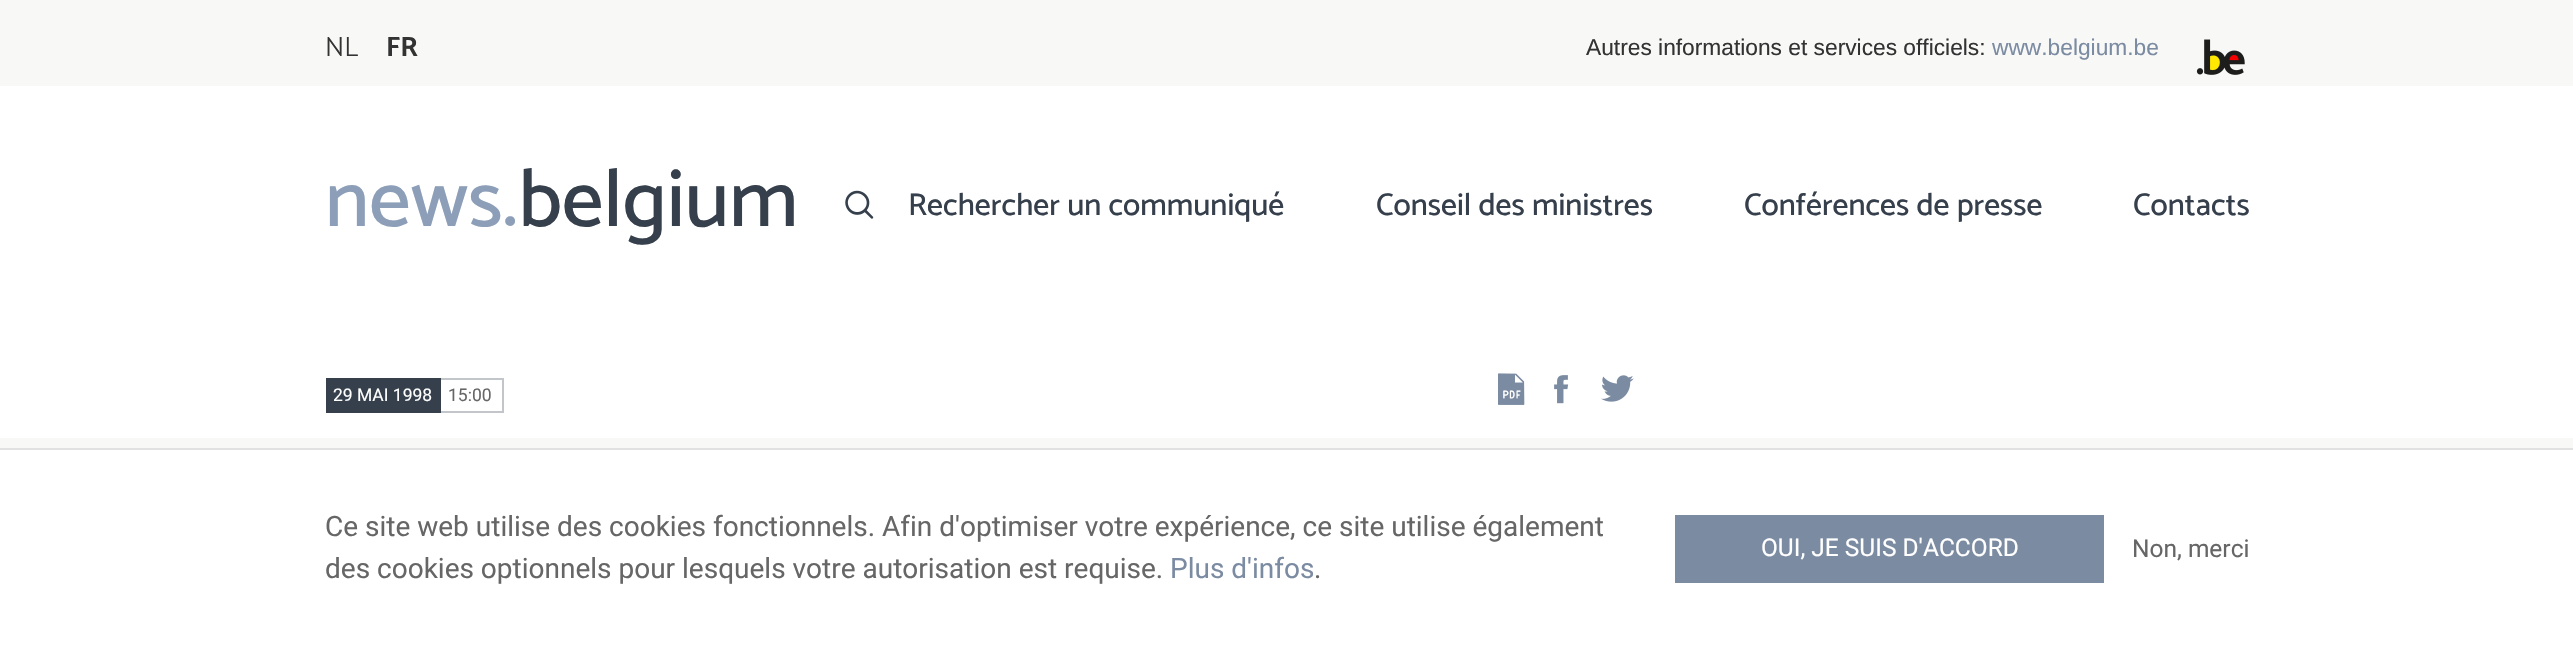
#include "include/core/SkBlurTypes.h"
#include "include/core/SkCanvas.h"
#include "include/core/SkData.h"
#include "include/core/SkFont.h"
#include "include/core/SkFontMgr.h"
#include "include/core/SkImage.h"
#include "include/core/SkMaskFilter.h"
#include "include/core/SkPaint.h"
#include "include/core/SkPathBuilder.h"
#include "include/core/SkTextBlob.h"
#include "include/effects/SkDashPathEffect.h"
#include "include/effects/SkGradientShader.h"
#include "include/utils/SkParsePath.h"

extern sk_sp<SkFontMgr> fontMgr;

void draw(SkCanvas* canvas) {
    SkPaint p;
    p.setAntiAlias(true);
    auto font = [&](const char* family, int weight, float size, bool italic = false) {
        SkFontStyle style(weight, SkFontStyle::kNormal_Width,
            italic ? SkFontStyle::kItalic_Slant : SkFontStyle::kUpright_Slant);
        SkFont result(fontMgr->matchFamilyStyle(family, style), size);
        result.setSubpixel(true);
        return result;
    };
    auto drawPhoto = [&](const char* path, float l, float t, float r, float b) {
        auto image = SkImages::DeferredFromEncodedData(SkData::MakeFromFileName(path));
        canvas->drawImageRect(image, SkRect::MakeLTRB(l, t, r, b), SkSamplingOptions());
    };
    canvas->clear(0xFFF8F8F7);
    auto font1 = font("Catamaran", 300, 28);
    p.setColor(0xFF333333);
    canvas->drawString("NL", 325, 56, font1, p);
    auto font2 = font("Catamaran", 700, 28);
    canvas->drawString("FR", 386, 56, font2, p);
    auto font3 = font("Liberation Sans", 400, 22.75f);
    canvas->drawString("Autres informations et services officiels:", 1586, 55, font3, p);
    p.setColor(0xFF7B8BA2);
    canvas->drawString("www.belgium.be", 1992, 55, font3, p);
    drawPhoto("media/1.png", 2196, 39, 2245, 75);
    p.setColor(0xFFFFFFFF);
    canvas->drawRect(SkRect::MakeLTRB(0, 86, 2573, 438), p);
    auto font4 = font("Catamaran", 500, 82);
    p.setColor(0xFF8C9EB8);
    canvas->drawString("news.", 325, 226, font4, p);
    p.setColor(0xFF363F4C);
    canvas->drawString("belgium", 518, 226, font4, p);
    drawPhoto("media/2.png", 845, 190, 874, 219);
    auto font5 = font("Catamaran", 500, 31.5f);
    {
        const struct { const char* s; float x, y; } items[] = {
            {"Rechercher un communiqué", 908, 215},
            {"Conseil des ministres", 1376, 215},
            {"Conférences de presse", 1744, 215},
            {"Contacts", 2133, 215},
        };
        for (auto [s, x, y] : items) {
            canvas->drawString(s, x, y, font5, p);
        }
    }
    canvas->drawRect(SkRect::MakeLTRB(326, 378, 441, 413), p);
    auto font6 = font("Roboto", 400, 17.5f);
    p.setColor(0xFFFFFFFF);
    canvas->drawString("29 MAI 1998", 333, 401, font6, p);
    {
        const struct { float l, t, r, b; SkColor color; } items[] = {
            {441, 378, 504, 380, 0xFFC2C5C9},
            {502, 378, 504, 413, 0xFFC2C5C9},
            {441, 411, 504, 413, 0xFFC2C5C9},
        };
        for (auto [l, t, r, b, color] : items) {
            p.setColor(color);
            canvas->drawRect(SkRect::MakeLTRB(l, t, r, b), p);
        }
    }
    p.setColor(0xFF666666);
    canvas->drawString("15:00", 448, 401, font6, p);
    drawPhoto("media/3.png", 1498, 373, 1525, 405);
    drawPhoto("media/4.png", 1554, 375, 1569, 404);
    drawPhoto("media/5.png", 1601, 375, 1634, 402);
    p.setColor(0xFFFFFFFF);
    canvas->drawRect(SkRect::MakeLTRB(0, 450, 2573, 645), p);
    p.setColor(0xFFE1E1E1);
    canvas->drawRect(SkRect::MakeLTRB(0, 448, 2573, 450), p);
    auto font7 = font("Roboto", 400, 28);
    p.setColor(0xFF666666);
    canvas->drawString("Ce site web utilise des cookies fonctionnels. Afin d'optimiser votre expérience, ce site utilise également", 325, 536, font7, p);
    canvas->drawString("des cookies optionnels pour lesquels votre autorisation est requise.", 325, 578, font7, p);
    p.setColor(0xFF7B8BA2);
    canvas->drawString("Plus d'infos", 1170, 578, font7, p);
    p.setColor(0xFF666666);
    canvas->drawString(".", 1314, 578, font7, p);
    p.setColor(0xFF7B8BA2);
    canvas->drawRect(SkRect::MakeLTRB(1675, 515, 2104, 583), p);
    auto font8 = font("Roboto", 400, 24.5f);
    p.setColor(0xFFFFFFFF);
    canvas->drawString("OUI, JE SUIS D'ACCORD", 1761, 556, font8, p);
    p.setColor(0xFF666666);
    canvas->drawString("Non, merci", 2132, 557, font8, p);
}
